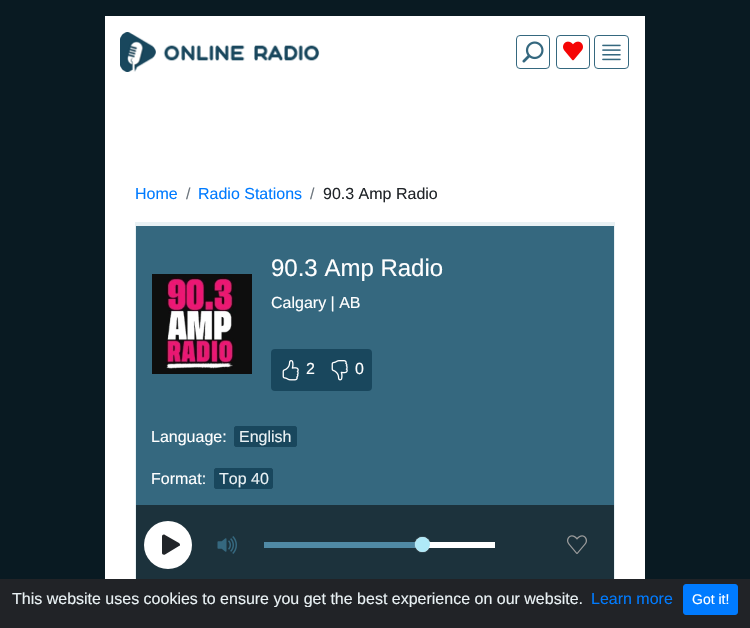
#include "include/core/SkBlurTypes.h"
#include "include/core/SkCanvas.h"
#include "include/core/SkData.h"
#include "include/core/SkFont.h"
#include "include/core/SkFontMgr.h"
#include "include/core/SkImage.h"
#include "include/core/SkMaskFilter.h"
#include "include/core/SkPaint.h"
#include "include/core/SkPathBuilder.h"
#include "include/core/SkTextBlob.h"
#include "include/effects/SkDashPathEffect.h"
#include "include/effects/SkGradientShader.h"
#include "include/utils/SkParsePath.h"

extern sk_sp<SkFontMgr> fontMgr;

void draw(SkCanvas* canvas) {
    SkPaint p;
    p.setAntiAlias(true);
    auto font = [&](const char* family, int weight, float size, bool italic = false) {
        SkFontStyle style(weight, SkFontStyle::kNormal_Width,
            italic ? SkFontStyle::kItalic_Slant : SkFontStyle::kUpright_Slant);
        SkFont result(fontMgr->matchFamilyStyle(family, style), size);
        result.setSubpixel(true);
        return result;
    };
    auto drawPhoto = [&](const char* path, float l, float t, float r, float b) {
        auto image = SkImages::DeferredFromEncodedData(SkData::MakeFromFileName(path));
        canvas->drawImageRect(image, SkRect::MakeLTRB(l, t, r, b), SkSamplingOptions());
    };
    canvas->clear(0xFF091A22);
    p.setColor(0xFFFFFFFF);
    canvas->drawRect(SkRect::MakeLTRB(105, 16, 645, 579), p);
    drawPhoto("media/1.png", 120, 32, 320, 72);
    p.setStyle(SkPaint::kStroke_Style);
    p.setStrokeWidth(1);
    p.setColor(0xFF35687F);
    canvas->drawRoundRect(SkRect::MakeLTRB(516.5f, 35.5f, 549.5f, 68.5f), 3.5f, 3.5f, p);
    drawPhoto("media/2.png", 522, 41, 544, 63);
    canvas->drawRoundRect(SkRect::MakeLTRB(556.5f, 35.5f, 589.5f, 68.5f), 3.5f, 3.5f, p);
    drawPhoto("media/3.png", 563, 41, 583, 61);
    canvas->drawRoundRect(SkRect::MakeLTRB(594.5f, 35.5f, 628.5f, 68.5f), 3.5f, 3.5f, p);
    drawPhoto("media/4.png", 602, 44, 621, 61);
    auto font1 = font("Liberation Sans", 400, 16);
    p.setStyle(SkPaint::kFill_Style);
    p.setColor(0xFF007BFF);
    canvas->drawString("Home", 135, 199, font1, p);
    p.setColor(0xFF6C757D);
    canvas->drawString("/", 186, 199, font1, p);
    p.setColor(0xFF007BFF);
    canvas->drawString("Radio Stations", 198, 199, font1, p);
    p.setColor(0xFF6C757D);
    canvas->drawString("/", 310, 199, font1, p);
    p.setColor(0xFF212529);
    canvas->drawString("90.3 Amp Radio", 323, 199, font1, p);
    p.setColor(0xFFE9F1F4);
    canvas->drawRect(SkRect::MakeLTRB(135, 222, 615, 579), p);
    p.setColor(0xFF35687F);
    canvas->drawRect(SkRect::MakeLTRB(136, 226, 614, 505), p);
    auto font2 = font("Liberation Sans", 400, 24);
    p.setColor(0xFFFFFFFF);
    canvas->drawString("90.3 Amp Radio", 271, 276, font2, p);
    drawPhoto("media/5.png", 152, 274, 252, 374);
    canvas->drawString("Calgary | AB", 271, 308, font1, p);
    p.setColor(0xFF19475D);
    canvas->drawRoundRect(SkRect::MakeLTRB(271, 349, 372, 391), 4, 4, p);
    drawPhoto("media/6.png", 282, 360, 299, 381);
    p.setColor(0xFFFFFFFF);
    canvas->drawString("2", 306, 374, font1, p);
    drawPhoto("media/7.png", 331, 360, 348, 381);
    canvas->drawString("0", 355, 374, font1, p);
    canvas->drawString("Language:", 151, 442, font1, p);
    p.setColor(0xFF19475D);
    canvas->drawRoundRect(SkRect::MakeLTRB(234.5f, 426.5f, 296.5f, 446.5f), 1.5f, 1.5f, p);
    p.setStyle(SkPaint::kStroke_Style);
    canvas->drawRoundRect(SkRect::MakeLTRB(234.5f, 426.5f, 296.5f, 446.5f), 1.5f, 1.5f, p);
    p.setStyle(SkPaint::kFill_Style);
    p.setColor(0xFFE9F1F4);
    canvas->drawString("English", 239, 442, font1, p);
    p.setColor(0xFFFFFFFF);
    canvas->drawString("Format:", 151, 484, font1, p);
    p.setColor(0xFF19475D);
    canvas->drawRoundRect(SkRect::MakeLTRB(214.5f, 468.5f, 272.5f, 488.5f), 1.5f, 1.5f, p);
    p.setStyle(SkPaint::kStroke_Style);
    canvas->drawRoundRect(SkRect::MakeLTRB(214.5f, 468.5f, 272.5f, 488.5f), 1.5f, 1.5f, p);
    p.setStyle(SkPaint::kFill_Style);
    p.setColor(0xFFE9F1F4);
    canvas->drawString("Top 40", 219, 484, font1, p);
    p.setColor(0xFF1C323C);
    canvas->drawRect(SkRect::MakeLTRB(136, 505, 614, 579), p);
    p.setColor(0xFFFFFFFF);
    canvas->drawCircle(168, 545, 24, p);
    p.setColor(0xFF212529);
    canvas->drawPath(SkPathBuilder().moveTo(179, 546).lineTo(165, 554.5f).cubicTo(163.5f, 555, 162, 554.5f, 162, 553).lineTo(162, 536.5f).cubicTo(162, 535, 163.5f, 534, 165, 535).lineTo(179, 543).cubicTo(179.5f, 543.5f, 180, 544, 180, 544.5f).cubicTo(180, 545.5f, 179.5f, 546, 179, 546).close().detach(), p);
    drawPhoto("media/8.png", 217, 536, 237, 554);
    p.setColor(0xFFFFFFFF);
    canvas->drawRect(SkRect::MakeLTRB(429, 542, 495, 548), p);
    p.setColor(0xFF508AA5);
    canvas->drawRect(SkRect::MakeLTRB(264, 542, 416, 548), p);
    p.setColor(0xFFFFFFFF);
    p.setMaskFilter(SkMaskFilter::MakeBlur(kNormal_SkBlurStyle, 0.5f));
    canvas->drawRoundRect(SkRect::MakeLTRB(415, 537, 430, 552), 7.5f, 7.5f, p);
    p.setMaskFilter(nullptr);
    p.setColor(0xFFAFE9F8);
    canvas->drawCircle(422.5f, 544.5f, 7.5f, p);
    drawPhoto("media/9.png", 567, 535, 587, 554);
    p.setColor(0xFF212327);
    canvas->drawRect(SkRect::MakeLTRB(0, 579, 750, 628), p);
    canvas->save();
    canvas->clipRect(SkRect::MakeLTRB(7, 591, 673, 607));
    p.setColor(0xFFE9F1F4);
    canvas->drawString("This website uses cookies to ensure you get the best experience on our website.", 12, 604, font1, p);
    canvas->restore();
    p.setColor(0xFF007BFF);
    canvas->drawString("Learn more", 591, 604, font1, p);
    canvas->drawRoundRect(SkRect::MakeLTRB(683.5f, 584.5f, 737.5f, 614.5f), 2.5f, 2.5f, p);
    p.setStyle(SkPaint::kStroke_Style);
    canvas->drawRoundRect(SkRect::MakeLTRB(683.5f, 584.5f, 737.5f, 614.5f), 2.5f, 2.5f, p);
    auto font3 = font("Liberation Sans", 400, 14);
    p.setStyle(SkPaint::kFill_Style);
    p.setColor(0xFFFFFFFF);
    canvas->drawString("Got it!", 692, 604, font3, p);
}
